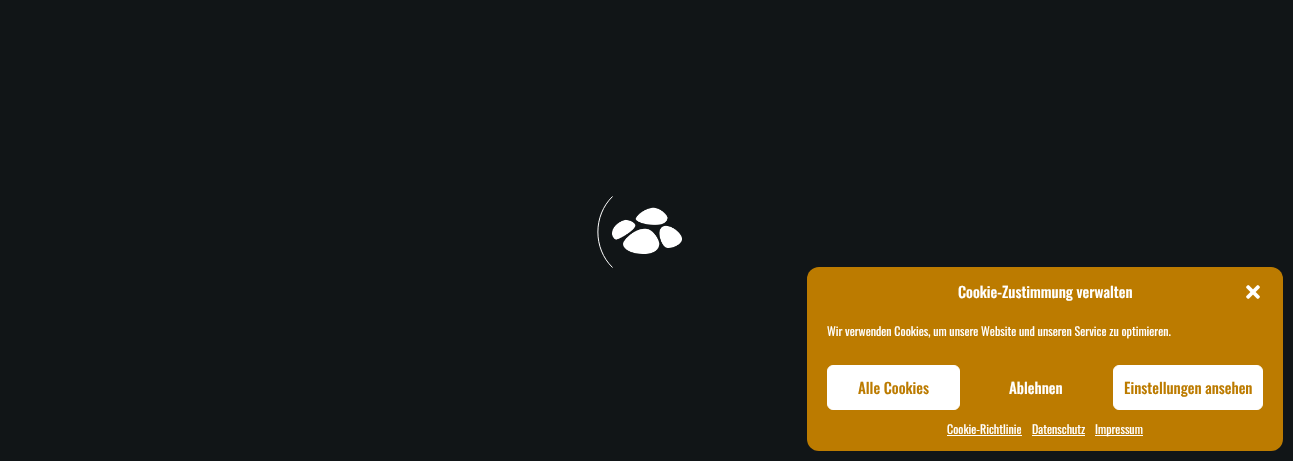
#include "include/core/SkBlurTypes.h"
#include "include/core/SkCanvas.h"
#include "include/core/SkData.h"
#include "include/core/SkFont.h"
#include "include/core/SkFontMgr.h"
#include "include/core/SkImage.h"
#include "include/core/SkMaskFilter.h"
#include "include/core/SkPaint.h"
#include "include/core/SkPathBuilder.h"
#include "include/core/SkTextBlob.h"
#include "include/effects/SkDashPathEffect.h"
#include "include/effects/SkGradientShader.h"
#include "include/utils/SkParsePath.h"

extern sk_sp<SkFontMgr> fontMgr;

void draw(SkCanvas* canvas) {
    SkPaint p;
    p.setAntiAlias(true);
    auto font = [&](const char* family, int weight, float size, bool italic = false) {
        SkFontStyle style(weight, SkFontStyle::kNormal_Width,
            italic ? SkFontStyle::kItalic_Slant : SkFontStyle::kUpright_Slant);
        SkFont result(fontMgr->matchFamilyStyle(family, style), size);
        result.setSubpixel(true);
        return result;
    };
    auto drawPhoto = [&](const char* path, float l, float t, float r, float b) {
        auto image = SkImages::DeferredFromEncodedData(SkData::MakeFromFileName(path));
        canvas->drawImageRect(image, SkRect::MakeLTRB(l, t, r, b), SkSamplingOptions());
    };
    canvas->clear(0xFF111517);
    p.setStyle(SkPaint::kStroke_Style);
    p.setStrokeWidth(1);
    p.setColor(0xFFFFFFFF);
    canvas->drawPath(SkPathBuilder().moveTo(612.5f, 267.5f).cubicTo(593, 248.5f, 593, 215.5f, 612.5f, 196.5f).detach(), p);
    drawPhoto("media/1.png", 612, 207, 682, 254);
    p.setStyle(SkPaint::kFill_Style);
    p.setColor(0xFFBC7B00);
    canvas->drawRoundRect(SkRect::MakeLTRB(807, 267, 1283, 451), 12, 12, p);
    auto font1 = font("Oswald", 500, 15);
    p.setColor(0xFFFFFFFF);
    canvas->drawString("Cookie-Zustimmung verwalten", 958, 298, font1, p);
    drawPhoto("media/2.png", 1246, 285, 1260, 299);
    auto font2 = font("Oswald", 400, 12);
    canvas->drawString("Wir verwenden Cookies, um unsere Website und unseren Service zu optimieren.", 827, 336, font2, p);
    canvas->drawRoundRect(SkRect::MakeLTRB(827.5f, 365.5f, 959.5f, 409.5f), 5.5f, 5.5f, p);
    p.setStyle(SkPaint::kStroke_Style);
    canvas->drawRoundRect(SkRect::MakeLTRB(827.5f, 365.5f, 959.5f, 409.5f), 5.5f, 5.5f, p);
    p.setStyle(SkPaint::kFill_Style);
    p.setColor(0xFFBC7B00);
    canvas->drawString("Alle Cookies", 858, 394, font1, p);
    p.setColor(0xFFFFFFFF);
    canvas->drawString("Ablehnen", 1009, 394, font1, p);
    canvas->drawRoundRect(SkRect::MakeLTRB(1113.5f, 365.5f, 1262.5f, 409.5f), 5.5f, 5.5f, p);
    p.setStyle(SkPaint::kStroke_Style);
    canvas->drawRoundRect(SkRect::MakeLTRB(1113.5f, 365.5f, 1262.5f, 409.5f), 5.5f, 5.5f, p);
    p.setStyle(SkPaint::kFill_Style);
    p.setColor(0xFFBC7B00);
    canvas->drawString("Einstellungen ansehen", 1124, 394, font1, p);
    p.setColor(0xFFFFFFFF);
    canvas->drawString("Cookie-Richtlinie", 947, 434, font2, p);
    canvas->drawRect(SkRect::MakeLTRB(947, 435, 1022, 436), p);
    canvas->drawString("Datenschutz", 1032, 434, font2, p);
    canvas->drawRect(SkRect::MakeLTRB(1032, 435, 1085, 436), p);
    canvas->drawRect(SkRect::MakeLTRB(1095, 435, 1143, 436), p);
    canvas->drawString("Impressum", 1095, 434, font2, p);
}
